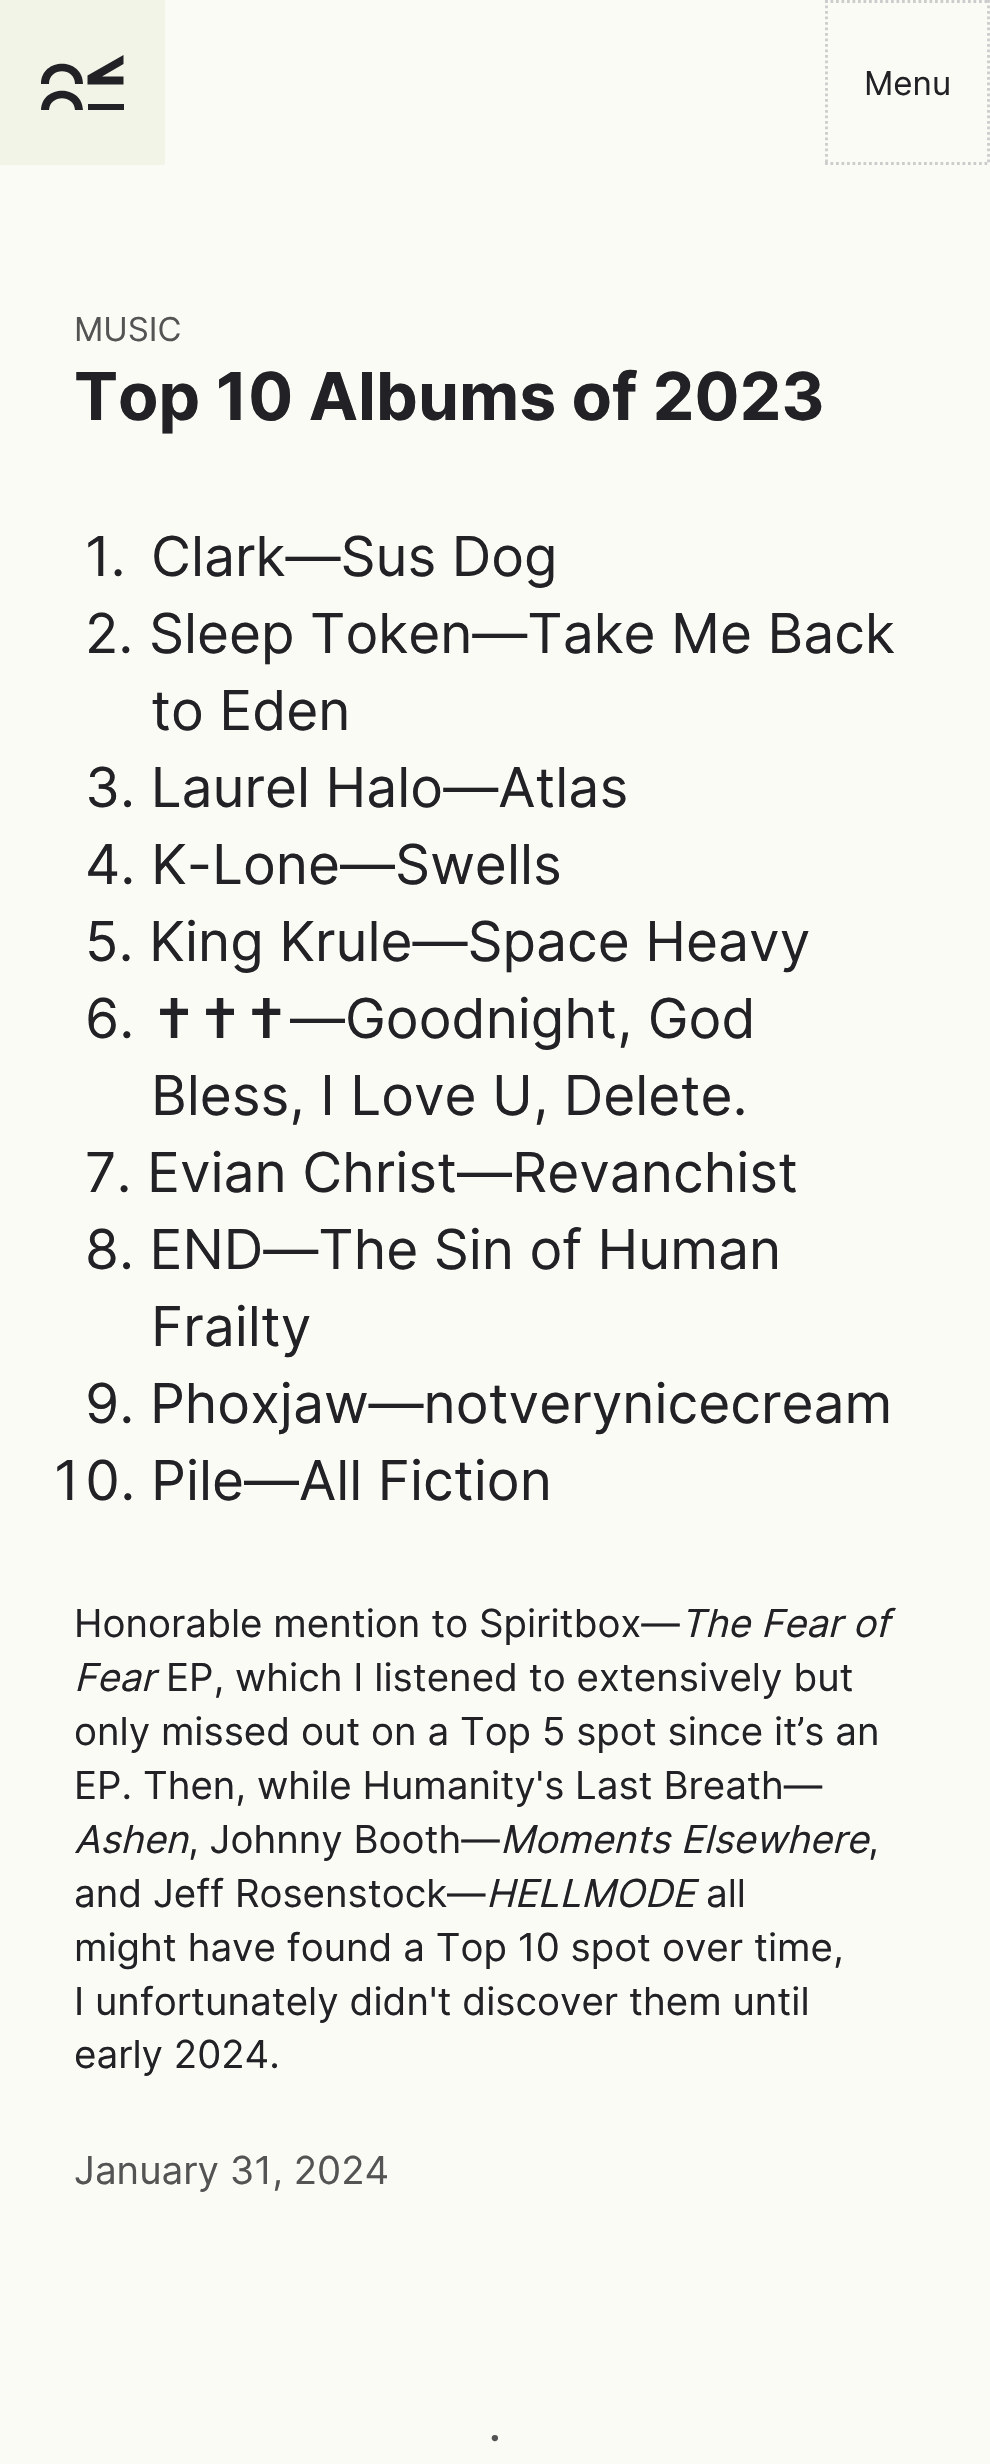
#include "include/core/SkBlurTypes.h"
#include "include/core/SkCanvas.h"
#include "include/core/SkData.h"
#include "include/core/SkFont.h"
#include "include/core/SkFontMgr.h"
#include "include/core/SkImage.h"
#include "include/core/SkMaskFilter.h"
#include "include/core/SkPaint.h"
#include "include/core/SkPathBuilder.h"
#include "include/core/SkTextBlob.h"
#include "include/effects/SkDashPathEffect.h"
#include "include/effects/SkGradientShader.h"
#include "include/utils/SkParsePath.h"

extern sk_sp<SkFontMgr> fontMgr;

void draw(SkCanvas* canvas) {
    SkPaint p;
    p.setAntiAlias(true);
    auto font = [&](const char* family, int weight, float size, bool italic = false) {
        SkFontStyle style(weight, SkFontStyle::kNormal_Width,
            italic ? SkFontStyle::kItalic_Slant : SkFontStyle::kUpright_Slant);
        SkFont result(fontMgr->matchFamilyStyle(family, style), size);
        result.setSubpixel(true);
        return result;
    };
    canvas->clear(0xFFFBFBF6);
    p.setColor(0xFFF2F4E8);
    canvas->drawRect(SkRect::MakeLTRB(0, 0, 165, 165), p);
    p.setColor(0xFF222226);
    canvas->drawPath(SkPathBuilder().moveTo(83, 84).lineTo(75, 84).cubicTo(75, 67, 49, 67, 49, 84).lineTo(41, 84).cubicTo(41, 57, 83, 57, 83, 84).close().detach(), p);
    canvas->drawRect(SkRect::MakeLTRB(88, 104, 124, 110), p);
    canvas->save();
    canvas->clipRect(SkRect::MakeLTRB(41, 55, 124, 110));
    canvas->drawPath(SkPathBuilder().moveTo(83, 111).lineTo(75, 111).cubicTo(75, 94, 49, 94, 49, 111).lineTo(41, 111).cubicTo(41, 84, 83, 84, 83, 111).close().detach(), p);
    canvas->restore();
    canvas->drawPath(SkPathBuilder().moveTo(123.5f, 55).lineTo(87.5f, 75.5f).lineTo(87.5f, 84.5f).lineTo(123.5f, 84.5f).lineTo(123.5f, 76.5f).lineTo(102, 76.5f).lineTo(123.5f, 64).close().detach(), p);
    p.setStyle(SkPaint::kStroke_Style);
    p.setStrokeWidth(2.8f);
    p.setColor(0xFFCCCCCC);
    p.setPathEffect(SkDashPathEffect::Make({{2.75f, 2.75f}}, 0));
    canvas->drawPath(SkPathBuilder().moveTo(825, 1.5f).lineTo(990, 1.5f).detach(), p);
    p.setPathEffect(nullptr);
    p.setPathEffect(SkDashPathEffect::Make({{2.75f, 2.75f}}, 0));
    canvas->drawPath(SkPathBuilder().moveTo(988.5f, 0).lineTo(988.5f, 165).detach(), p);
    p.setPathEffect(nullptr);
    p.setPathEffect(SkDashPathEffect::Make({{2.75f, 2.75f}}, 0));
    canvas->drawPath(SkPathBuilder().moveTo(825, 163.5f).lineTo(990, 163.5f).detach(), p);
    p.setPathEffect(nullptr);
    p.setPathEffect(SkDashPathEffect::Make({{2.75f, 2.75f}}, 0));
    canvas->drawPath(SkPathBuilder().moveTo(826.5f, 0).lineTo(826.5f, 165).detach(), p);
    p.setPathEffect(nullptr);
    auto font1 = font("Inter", 400, 33);
    p.setStyle(SkPaint::kFill_Style);
    p.setColor(0xFF222226);
    canvas->drawString("Menu", 864, 95, font1, p);
    p.setColor(0xFF545454);
    canvas->drawString("MUSIC", 74, 341, font1, p);
    auto font2 = font("Inter", 700, 66);
    p.setColor(0xFF222226);
    canvas->drawString("Top 10 Albums of 2023", 74, 420, font2, p);
    auto font3 = font("Inter", 400, 55);
    {
        const struct { const char* s; float x, y; } items[] = {
            {"1.", 85, 576},
            {"Clark—Sus Dog", 151, 576},
            {"2. Sleep Token—Take Me Back", 85, 653},
            {"to Eden", 151, 730},
            {"3. Laurel Halo—Atlas", 85, 807},
            {"4. K-Lone—Swells", 85, 884},
            {"5. King Krule—Space Heavy", 85, 961},
            {"6.", 85, 1038},
        };
        for (auto [s, x, y] : items) {
            canvas->drawString(s, x, y, font3, p);
        }
    }
    auto font4 = font("DejaVu Sans", 400, 55);
    canvas->drawString("✝✝✝", 151, 1038, font4, p);
    {
        const struct { const char* s; float x, y; } items[] = {
            {"—Goodnight, God", 290, 1038},
            {"Bless, I Love U, Delete.", 151, 1115},
            {"7. Evian Christ—Revanchist", 85, 1192},
            {"8. END—The Sin of Human", 85, 1269},
            {"Frailty", 151, 1346},
            {"9. Phoxjaw—notverynicecream", 85, 1423},
        };
        for (auto [s, x, y] : items) {
            canvas->drawString(s, x, y, font3, p);
        }
    }
    auto font5 = font("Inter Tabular", 400, 55);
    canvas->drawString("10.", 49, 1500, font5, p);
    canvas->drawString("Pile—All Fiction", 151, 1500, font3, p);
    auto font6 = font("Inter", 400, 38.5f);
    canvas->drawString("Honorable mention to Spiritbox—", 74, 1637, font6, p);
    auto font7 = font("Inter", 400, 38.5f, true);
    canvas->drawString("The Fear of", 680, 1637, font7, p);
    canvas->drawString("Fear", 74, 1691, font7, p);
    {
        const struct { const char* s; float x, y; } items[] = {
            {"EP, which I listened to extensively but", 166, 1691},
            {"only missed out on a Top 5 spot since it’s an", 74, 1745},
            {"EP. Then, while Humanity's Last Breath—", 74, 1799},
        };
        for (auto [s, x, y] : items) {
            canvas->drawString(s, x, y, font6, p);
        }
    }
    canvas->drawString("Ashen", 74, 1853, font7, p);
    canvas->drawString(", Johnny Booth—", 188, 1853, font6, p);
    canvas->drawString("Moments Elsewhere", 500, 1853, font7, p);
    canvas->drawString(",", 868, 1853, font6, p);
    canvas->drawString("and Jeff Rosenstock—", 74, 1907, font6, p);
    canvas->drawString("HELLMODE", 486, 1907, font7, p);
    {
        const struct { const char* s; float x, y; } items[] = {
            {"all", 706, 1907},
            {"might have found a Top 10 spot over time,", 74, 1961},
            {"I unfortunately didn't discover them until", 74, 2015},
            {"early 2024.", 74, 2068},
        };
        for (auto [s, x, y] : items) {
            canvas->drawString(s, x, y, font6, p);
        }
    }
    p.setColor(0xFF545454);
    canvas->drawString("January 31, 2024", 74, 2184, font6, p);
    auto font8 = font("Inter", 400, 50);
    canvas->drawString("·", 488, 2454, font8, p);
}
